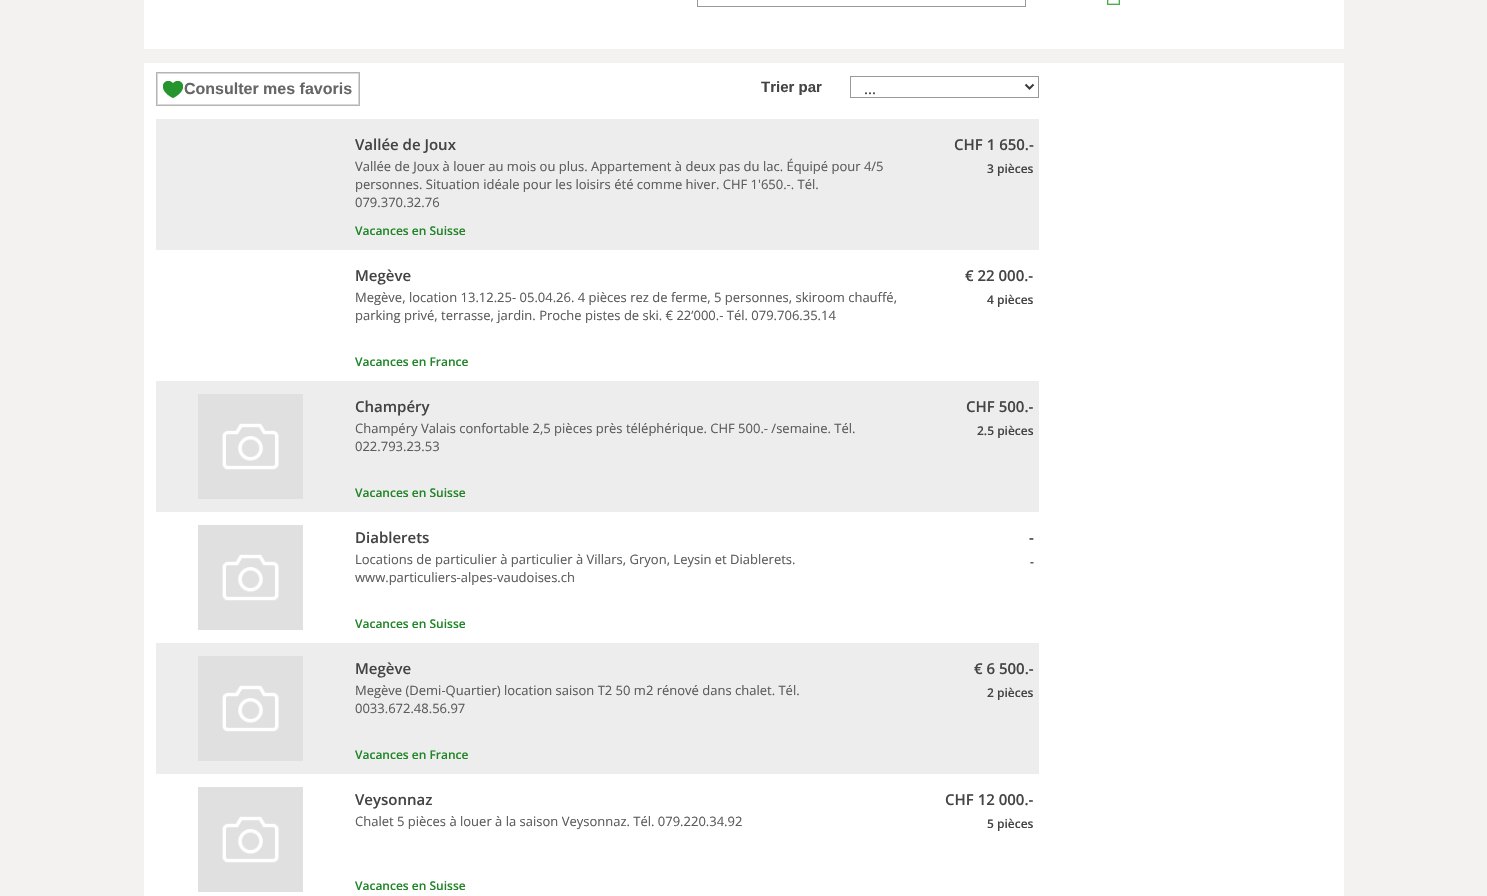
#include "include/core/SkBlurTypes.h"
#include "include/core/SkCanvas.h"
#include "include/core/SkData.h"
#include "include/core/SkFont.h"
#include "include/core/SkFontMgr.h"
#include "include/core/SkImage.h"
#include "include/core/SkMaskFilter.h"
#include "include/core/SkPaint.h"
#include "include/core/SkPathBuilder.h"
#include "include/core/SkTextBlob.h"
#include "include/effects/SkDashPathEffect.h"
#include "include/effects/SkGradientShader.h"
#include "include/utils/SkParsePath.h"

extern sk_sp<SkFontMgr> fontMgr;

void draw(SkCanvas* canvas) {
    SkPaint p;
    p.setAntiAlias(true);
    auto font = [&](const char* family, int weight, float size, bool italic = false) {
        SkFontStyle style(weight, SkFontStyle::kNormal_Width,
            italic ? SkFontStyle::kItalic_Slant : SkFontStyle::kUpright_Slant);
        SkFont result(fontMgr->matchFamilyStyle(family, style), size);
        result.setSubpixel(true);
        return result;
    };
    auto drawPhoto = [&](const char* path, float l, float t, float r, float b) {
        auto image = SkImages::DeferredFromEncodedData(SkData::MakeFromFileName(path));
        canvas->drawImageRect(image, SkRect::MakeLTRB(l, t, r, b), SkSamplingOptions());
    };
    canvas->clear(0xFFF3F2F1);
    p.setColor(0xFFFFFFFF);
    canvas->drawRect(SkRect::MakeLTRB(144, 0, 1344, 49), p);
    p.setStyle(SkPaint::kStroke_Style);
    p.setStrokeWidth(1);
    p.setColor(0xFF999999);
    canvas->drawRect(SkRect::MakeLTRB(697.5f, -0.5f, 1025.5f, 6.5f), p);
    drawPhoto("media/1.png", 1107, 0, 1120, 5);
    p.setStyle(SkPaint::kFill_Style);
    {
        const struct { float l, t, r, b; SkColor color; } items[] = {
            {144, 63, 1344, 896, 0xFFFFFFFF},
            {156, 72, 360, 73, 0xFFB4B4B4},
            {359, 72, 360, 106, 0xFFB4B4B4},
            {156, 105, 360, 106, 0xFFB4B4B4},
            {156, 72, 157, 106, 0xFFB4B4B4},
        };
        for (auto [l, t, r, b, color] : items) {
            p.setColor(color);
            canvas->drawRect(SkRect::MakeLTRB(l, t, r, b), p);
        }
    }
    drawPhoto("media/2.png", 163, 81, 183, 98);
    p.setStyle(SkPaint::kStroke_Style);
    p.setColor(0xFFD8D8D8);
    canvas->drawRect(SkRect::MakeLTRB(157.5f, 73.5f, 358.5f, 104.5f), p);
    auto font1 = font("Liberation Sans", 700, 16);
    p.setStyle(SkPaint::kFill_Style);
    p.setColor(0xFF666666);
    canvas->drawString("Consulter mes favoris", 184, 94, font1, p);
    auto font2 = font("Liberation Sans", 700, 15);
    p.setColor(0xFF444444);
    canvas->drawString("Trier par", 761, 92, font2, p);
    p.setStyle(SkPaint::kStroke_Style);
    p.setColor(0xFF999999);
    canvas->drawRect(SkRect::MakeLTRB(850.5f, 76.5f, 1038.5f, 97.5f), p);
    p.setStrokeWidth(2);
    p.setColor(0xFF3A3A3A);
    canvas->drawPath(SkPathBuilder().moveTo(1025.5f, 84.5f).lineTo(1029.5f, 88.5f).lineTo(1033.5f, 84.5f).detach(), p);
    auto font3 = font("Open Sans", 400, 15);
    p.setStyle(SkPaint::kFill_Style);
    canvas->drawString("...", 864, 94, font3, p);
    p.setColor(0xFFEDEDED);
    canvas->drawRect(SkRect::MakeLTRB(156, 119, 1039, 250), p);
    auto font4 = font("Open Sans", 600, 15);
    p.setColor(0xFF444444);
    canvas->drawString("Vallée de Joux", 355, 150, font4, p);
    auto font5 = font("Open Sans", 400, 13);
    p.setColor(0xFF5D5B5B);
    {
        const struct { const char* s; float x, y; } items[] = {
            {"Vallée de Joux à louer au mois ou plus. Appartement à deux pas du lac. Équipé pour 4/5", 355, 171},
            {"personnes. Situation idéale pour les loisirs été comme hiver. CHF 1'650.-. Tél.", 355, 189},
            {"079.370.32.76", 355, 207},
        };
        for (auto [s, x, y] : items) {
            canvas->drawString(s, x, y, font5, p);
        }
    }
    p.setColor(0xFF444444);
    canvas->drawString("CHF 1 650.-", 954, 150, font4, p);
    auto font6 = font("Open Sans", 600, 12);
    canvas->drawString("3 pièces", 987, 173, font6, p);
    p.setColor(0xFF208527);
    canvas->drawString("Vacances en Suisse", 355, 235, font6, p);
    p.setColor(0xFF444444);
    canvas->drawString("Megève", 355, 281, font4, p);
    p.setColor(0xFF5D5B5B);
    canvas->drawString("Megève, location 13.12.25- 05.04.26. 4 pièces rez de ferme, 5 personnes, skiroom chauffé,", 355, 302, font5, p);
    canvas->drawString("parking privé, terrasse, jardin. Proche pistes de ski. € 22’000.- Tél. 079.706.35.14", 355, 320, font5, p);
    p.setColor(0xFF444444);
    canvas->drawString("€ 22 000.-", 965, 281, font4, p);
    canvas->drawString("4 pièces", 987, 304, font6, p);
    p.setColor(0xFF208527);
    canvas->drawString("Vacances en France", 355, 366, font6, p);
    p.setColor(0xFFEDEDED);
    canvas->drawRect(SkRect::MakeLTRB(156, 381, 1039, 512), p);
    drawPhoto("media/3.png", 198, 394, 303, 499);
    p.setColor(0xFF444444);
    canvas->drawString("Champéry", 355, 412, font4, p);
    p.setColor(0xFF5D5B5B);
    canvas->drawString("Champéry Valais confortable 2,5 pièces près téléphérique. CHF 500.- /semaine. Tél.", 355, 433, font5, p);
    canvas->drawString("022.793.23.53", 355, 451, font5, p);
    p.setColor(0xFF444444);
    canvas->drawString("CHF 500.-", 966, 412, font4, p);
    canvas->drawString("2.5 pièces", 977, 435, font6, p);
    p.setColor(0xFF208527);
    canvas->drawString("Vacances en Suisse", 355, 497, font6, p);
    drawPhoto("media/3.png", 198, 525, 303, 630);
    p.setColor(0xFF444444);
    canvas->drawString("Diablerets", 355, 543, font4, p);
    p.setColor(0xFF5D5B5B);
    canvas->drawString("Locations de particulier à particulier à Villars, Gryon, Leysin et Diablerets.", 355, 564, font5, p);
    canvas->drawString("www.particuliers-alpes-vaudoises.ch", 355, 582, font5, p);
    p.setColor(0xFF444444);
    canvas->drawString("-", 1029, 543, font4, p);
    canvas->drawString("-", 1030, 566, font6, p);
    p.setColor(0xFF208527);
    canvas->drawString("Vacances en Suisse", 355, 628, font6, p);
    p.setColor(0xFFEDEDED);
    canvas->drawRect(SkRect::MakeLTRB(156, 643, 1039, 774), p);
    drawPhoto("media/3.png", 198, 656, 303, 761);
    p.setColor(0xFF444444);
    canvas->drawString("Megève", 355, 674, font4, p);
    p.setColor(0xFF5D5B5B);
    canvas->drawString("Megève (Demi-Quartier) location saison T2 50 m2 rénové dans chalet. Tél.", 355, 695, font5, p);
    canvas->drawString("0033.672.48.56.97", 355, 713, font5, p);
    p.setColor(0xFF444444);
    canvas->drawString("€ 6 500.-", 974, 674, font4, p);
    canvas->drawString("2 pièces", 987, 697, font6, p);
    p.setColor(0xFF208527);
    canvas->drawString("Vacances en France", 355, 759, font6, p);
    p.setColor(0xFF444444);
    canvas->drawString("CHF 12 000.-", 945, 805, font4, p);
    canvas->drawString("5 pièces", 987, 828, font6, p);
    p.setColor(0xFF208527);
    canvas->drawString("Vacances en Suisse", 355, 890, font6, p);
    drawPhoto("media/4.png", 198, 787, 303, 892);
    p.setColor(0xFF444444);
    canvas->drawString("Veysonnaz", 355, 805, font4, p);
    p.setColor(0xFF5D5B5B);
    canvas->drawString("Chalet 5 pièces à louer à la saison Veysonnaz. Tél. 079.220.34.92", 355, 826, font5, p);
}
